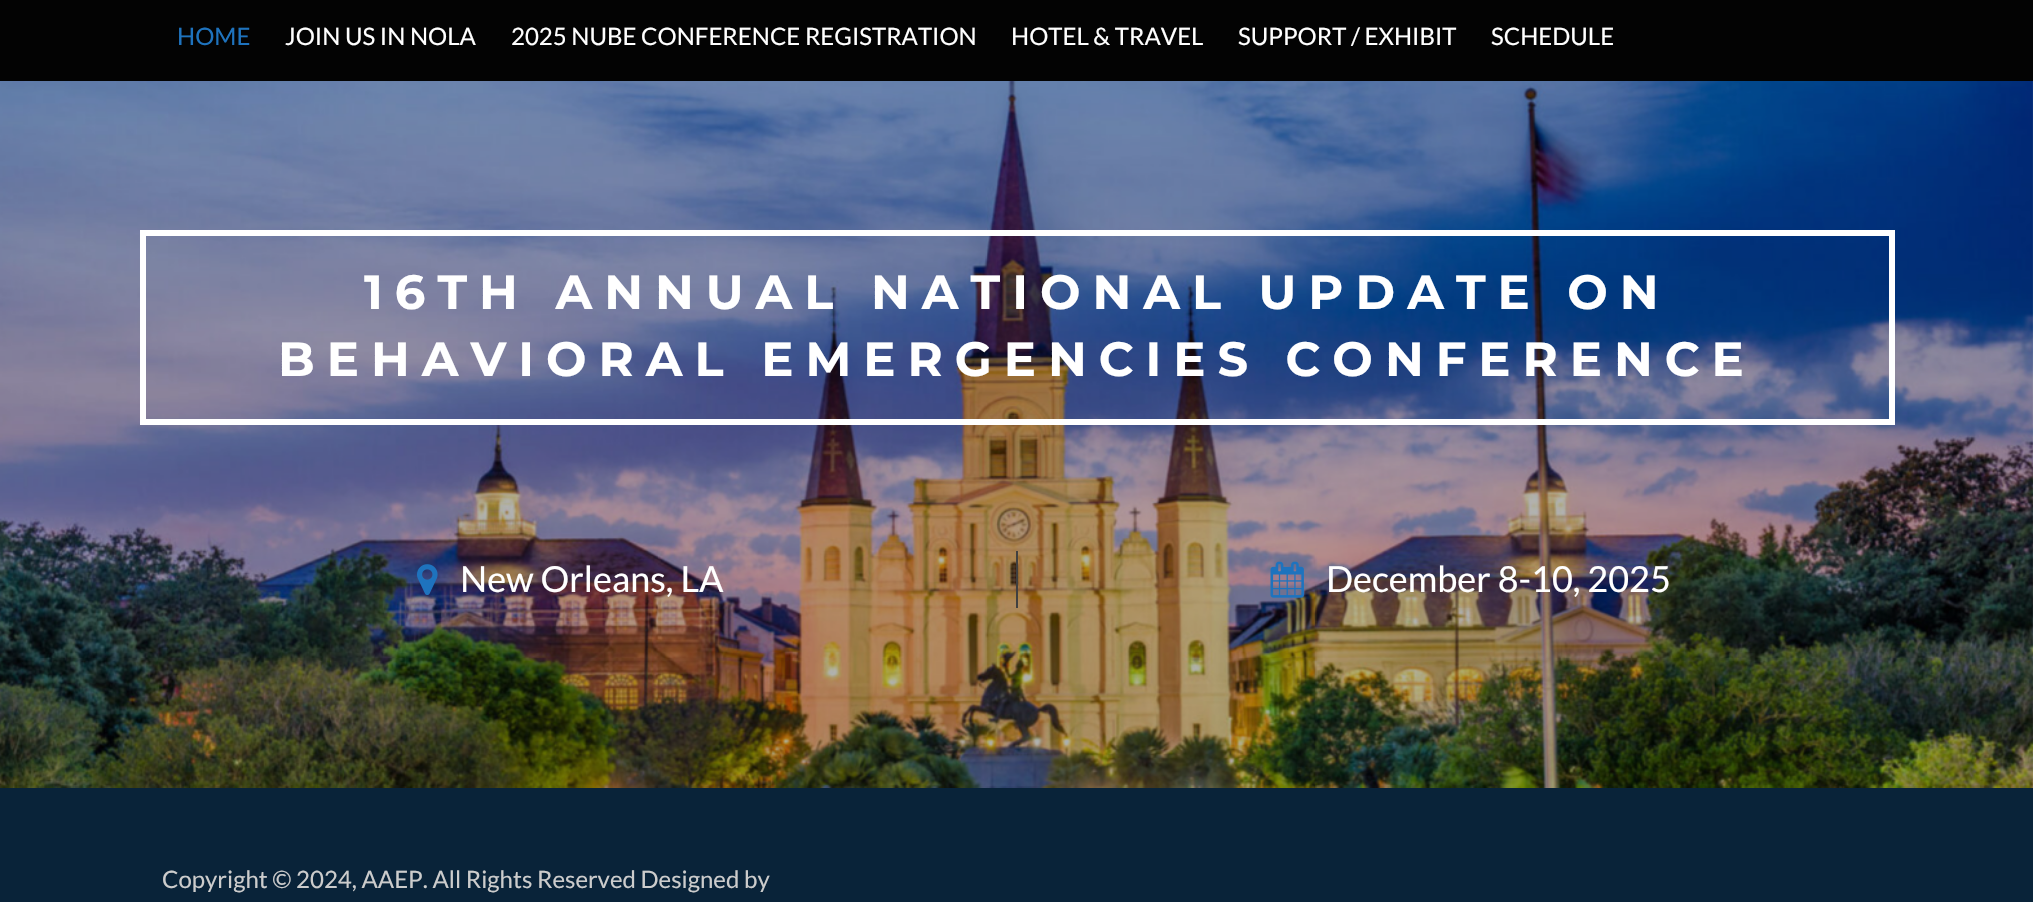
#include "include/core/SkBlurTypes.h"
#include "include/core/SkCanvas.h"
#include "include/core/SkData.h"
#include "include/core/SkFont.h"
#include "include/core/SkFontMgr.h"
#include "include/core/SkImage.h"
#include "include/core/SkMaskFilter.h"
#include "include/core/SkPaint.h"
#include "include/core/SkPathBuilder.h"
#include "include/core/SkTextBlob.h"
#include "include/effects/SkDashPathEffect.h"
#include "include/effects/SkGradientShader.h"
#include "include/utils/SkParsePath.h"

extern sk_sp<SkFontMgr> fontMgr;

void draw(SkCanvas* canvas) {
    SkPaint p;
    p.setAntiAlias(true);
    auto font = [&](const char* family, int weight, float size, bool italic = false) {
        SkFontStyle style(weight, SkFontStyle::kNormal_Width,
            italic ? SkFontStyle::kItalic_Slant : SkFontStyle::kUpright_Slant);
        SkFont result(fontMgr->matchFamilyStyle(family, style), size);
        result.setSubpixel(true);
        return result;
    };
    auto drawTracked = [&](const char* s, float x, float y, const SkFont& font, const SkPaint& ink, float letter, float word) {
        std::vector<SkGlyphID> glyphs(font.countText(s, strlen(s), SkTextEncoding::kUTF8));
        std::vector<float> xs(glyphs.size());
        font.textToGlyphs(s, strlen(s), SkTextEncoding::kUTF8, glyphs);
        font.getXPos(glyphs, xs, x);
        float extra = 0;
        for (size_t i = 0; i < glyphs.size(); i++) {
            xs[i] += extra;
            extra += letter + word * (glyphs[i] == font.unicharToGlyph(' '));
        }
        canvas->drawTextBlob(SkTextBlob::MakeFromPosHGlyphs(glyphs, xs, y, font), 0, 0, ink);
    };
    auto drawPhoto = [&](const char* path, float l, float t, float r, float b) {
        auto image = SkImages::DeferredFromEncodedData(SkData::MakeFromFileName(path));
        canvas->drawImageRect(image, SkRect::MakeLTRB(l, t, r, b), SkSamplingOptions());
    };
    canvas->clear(0xFFFFFFFF);
    p.setColor(0xFF030303);
    canvas->drawRect(SkRect::MakeLTRB(0, 0, 2033, 81), p);
    auto font1 = font("Lato", 400, 24);
    p.setColor(0xFF1E73BE);
    canvas->drawString("HOME", 177, 45, font1, p);
    p.setColor(0xFFFFFFFF);
    {
        const struct { const char* s; float x, y; } items[] = {
            {"JOIN US IN NOLA", 285, 45},
            {"2025 NUBE CONFERENCE REGISTRATION", 511, 45},
            {"HOTEL & TRAVEL", 1011, 45},
            {"SUPPORT / EXHIBIT", 1238, 45},
            {"SCHEDULE", 1491, 45},
        };
        for (auto [s, x, y] : items) {
            canvas->drawString(s, x, y, font1, p);
        }
    }
    drawPhoto("media/1.png", 0, 81, 2033, 788);
    p.setStyle(SkPaint::kStroke_Style);
    p.setStrokeWidth(6);
    canvas->drawRect(SkRect::MakeLTRB(143, 233, 1892, 422), p);
    auto font2 = font("Montserrat", 700, 48);
    p.setStyle(SkPaint::kFill_Style);
    drawTracked("16TH ANNUAL NATIONAL UPDATE ON", 364, 309, font2, p, 12, 0);
    drawTracked("BEHAVIORAL EMERGENCIES CONFERENCE", 278, 376, font2, p, 12, 0);
    p.setColor(0xFF404040);
    canvas->drawRect(SkRect::MakeLTRB(1016, 551, 1018, 608), p);
    drawPhoto("media/2.png", 417, 564, 438, 595);
    auto font3 = font("Lato", 400, 36);
    p.setColor(0xFFFFFFFF);
    canvas->drawString("New Orleans, LA", 460, 592, font3, p);
    drawPhoto("media/3.png", 1270, 561, 1304, 598);
    canvas->drawString("December 8-10, 2025", 1326, 592, font3, p);
    p.setColor(0xFF092339);
    canvas->drawRect(SkRect::MakeLTRB(0, 788, 2033, 902), p);
    p.setColor(0xFFCCCCCC);
    canvas->drawString("Copyright © 2024, AAEP. All Rights Reserved Designed by", 162, 888, font1, p);
}
